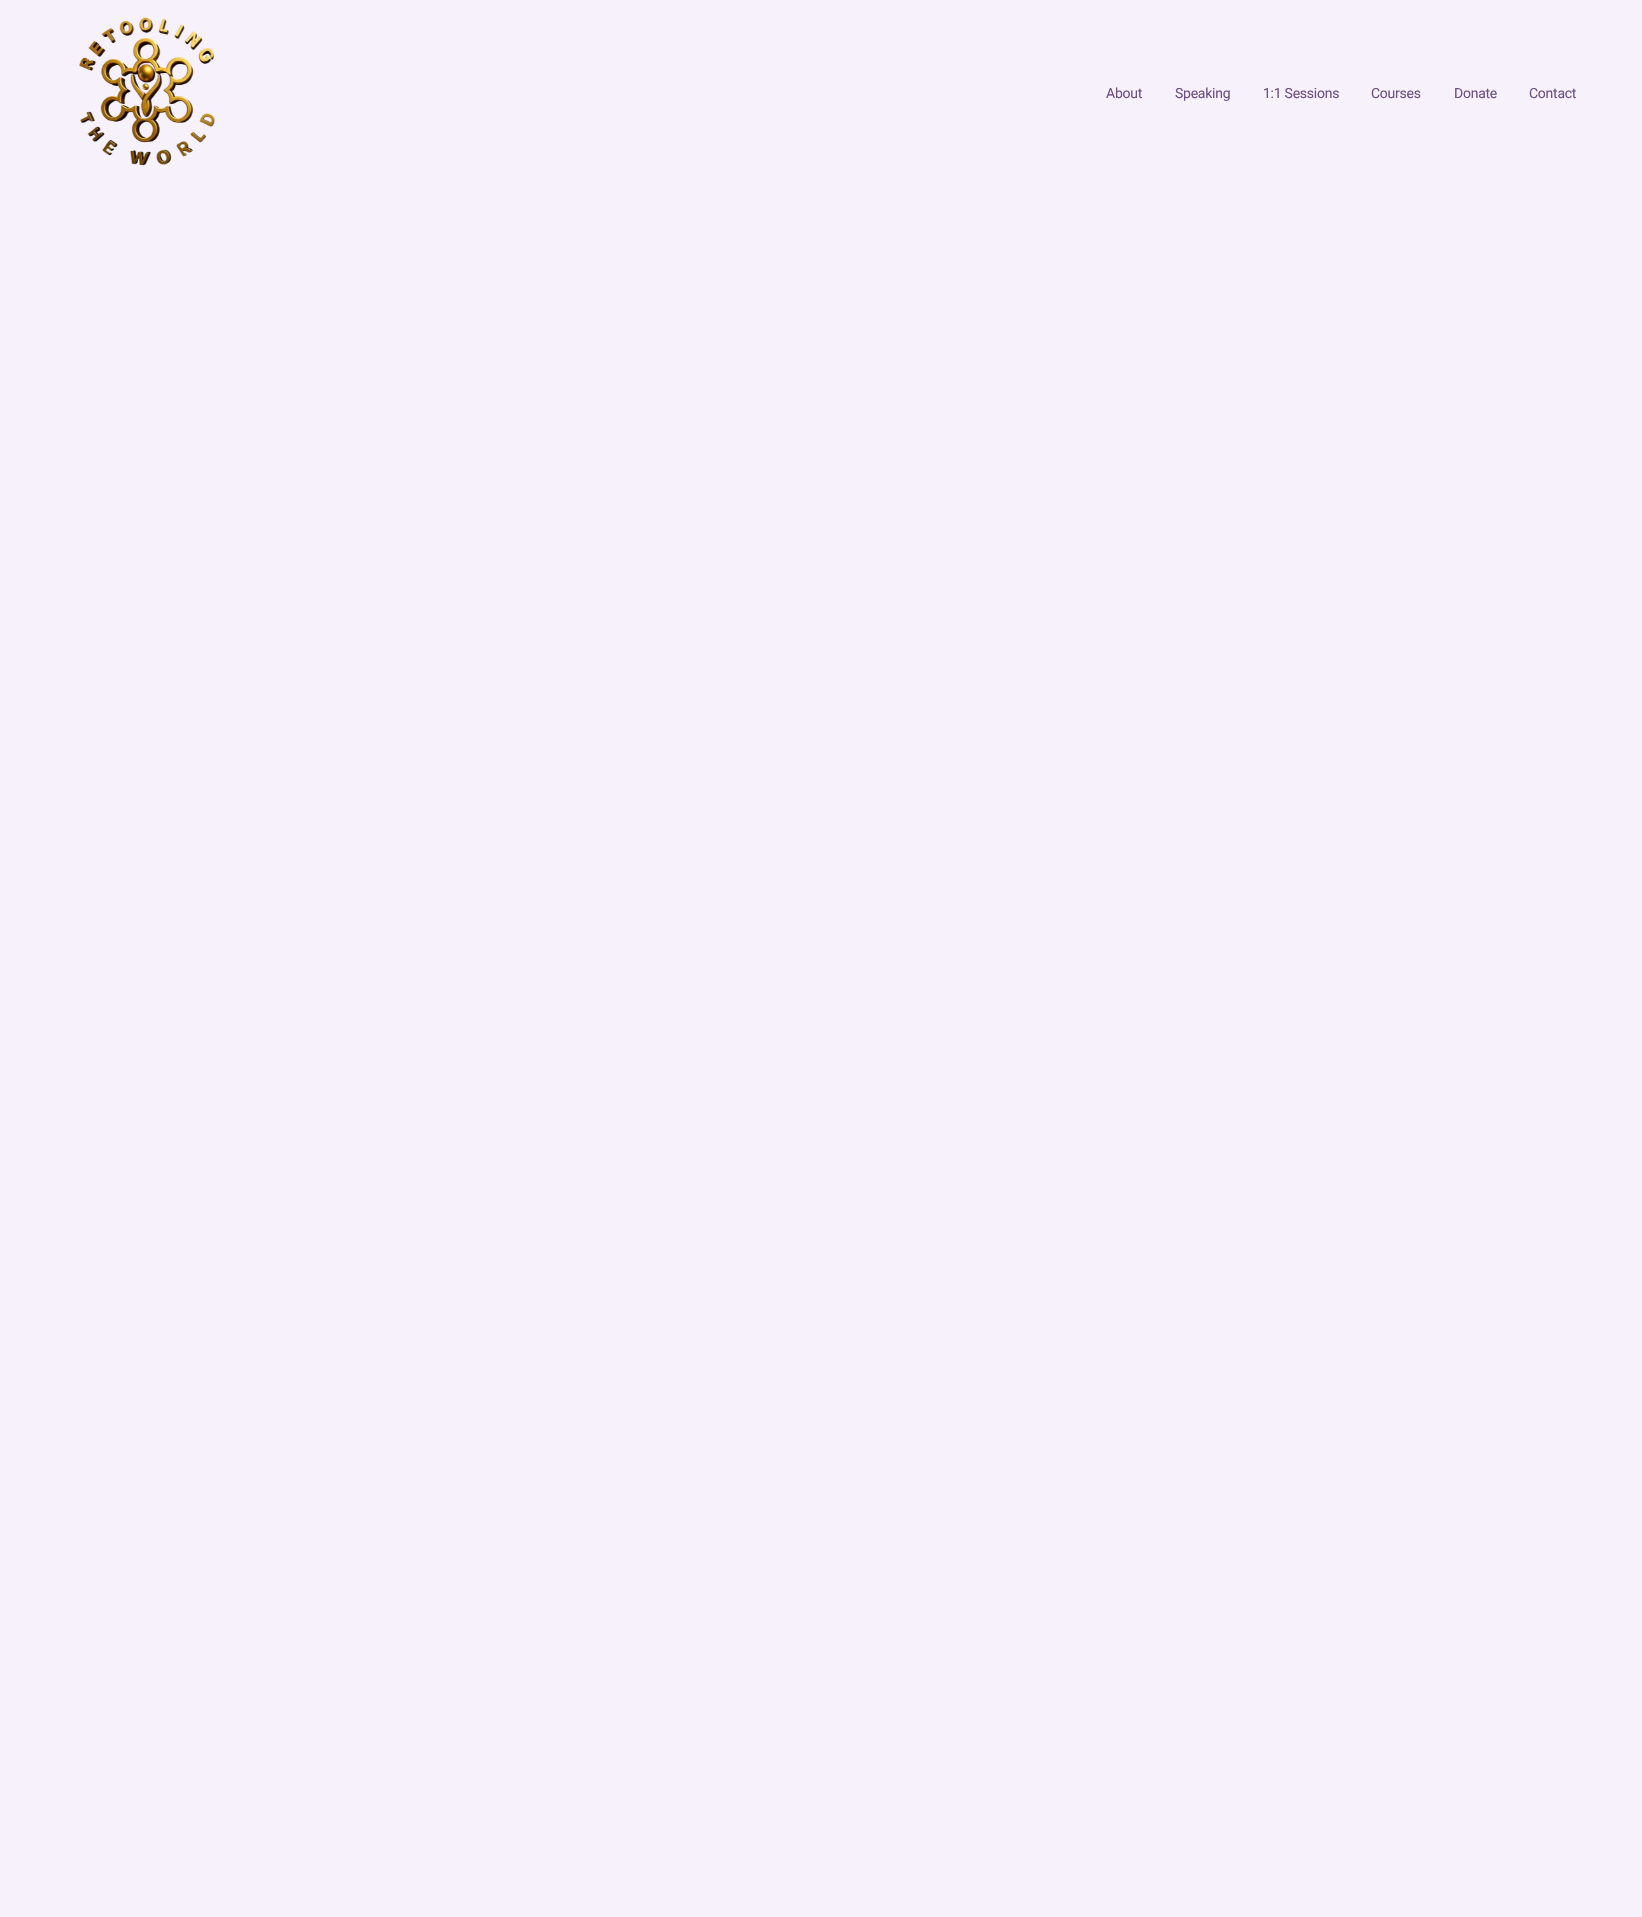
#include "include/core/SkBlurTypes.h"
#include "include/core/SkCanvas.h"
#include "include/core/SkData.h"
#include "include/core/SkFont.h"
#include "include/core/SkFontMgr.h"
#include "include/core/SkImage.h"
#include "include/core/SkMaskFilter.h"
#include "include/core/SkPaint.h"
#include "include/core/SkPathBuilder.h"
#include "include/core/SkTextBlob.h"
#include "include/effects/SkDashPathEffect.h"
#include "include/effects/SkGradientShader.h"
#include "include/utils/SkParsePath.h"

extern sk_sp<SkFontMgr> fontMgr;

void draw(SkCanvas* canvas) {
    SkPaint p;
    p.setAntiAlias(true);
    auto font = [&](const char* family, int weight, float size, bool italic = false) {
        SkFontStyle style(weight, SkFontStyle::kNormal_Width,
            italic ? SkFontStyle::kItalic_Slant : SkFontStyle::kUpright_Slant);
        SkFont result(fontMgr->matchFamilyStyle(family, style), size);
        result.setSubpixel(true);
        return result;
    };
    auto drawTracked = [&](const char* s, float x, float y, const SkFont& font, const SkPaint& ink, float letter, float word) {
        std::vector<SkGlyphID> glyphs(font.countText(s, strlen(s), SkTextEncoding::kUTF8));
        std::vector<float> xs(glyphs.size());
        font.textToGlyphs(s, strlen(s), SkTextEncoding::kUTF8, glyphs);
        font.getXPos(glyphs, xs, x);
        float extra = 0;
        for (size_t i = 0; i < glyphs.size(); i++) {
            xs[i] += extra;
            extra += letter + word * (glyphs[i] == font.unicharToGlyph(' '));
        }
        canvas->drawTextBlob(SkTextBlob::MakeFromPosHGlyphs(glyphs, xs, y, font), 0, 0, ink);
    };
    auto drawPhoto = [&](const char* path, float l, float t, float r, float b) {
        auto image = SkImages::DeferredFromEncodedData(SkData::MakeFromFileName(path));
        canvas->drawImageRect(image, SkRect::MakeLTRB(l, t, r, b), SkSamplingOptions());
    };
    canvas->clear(0xFFF7F1FC);
    drawPhoto("media/1.png", 79, 17, 215, 166);
    auto font1 = font("Roboto", 400, 14);
    p.setColor(0xFF6E5084);
    {
        const struct { const char* s; float x, y; } items[] = {
            {"About", 1106, 98},
            {"Speaking", 1175, 98},
            {"1:1 Sessions", 1263, 98},
            {"Courses", 1371, 98},
            {"Donate", 1454, 98},
            {"Contact", 1529, 98},
        };
        for (auto [s, x, y] : items) {
            drawTracked(s, x, y, font1, p, -0.25f, 0);
        }
    }
}
